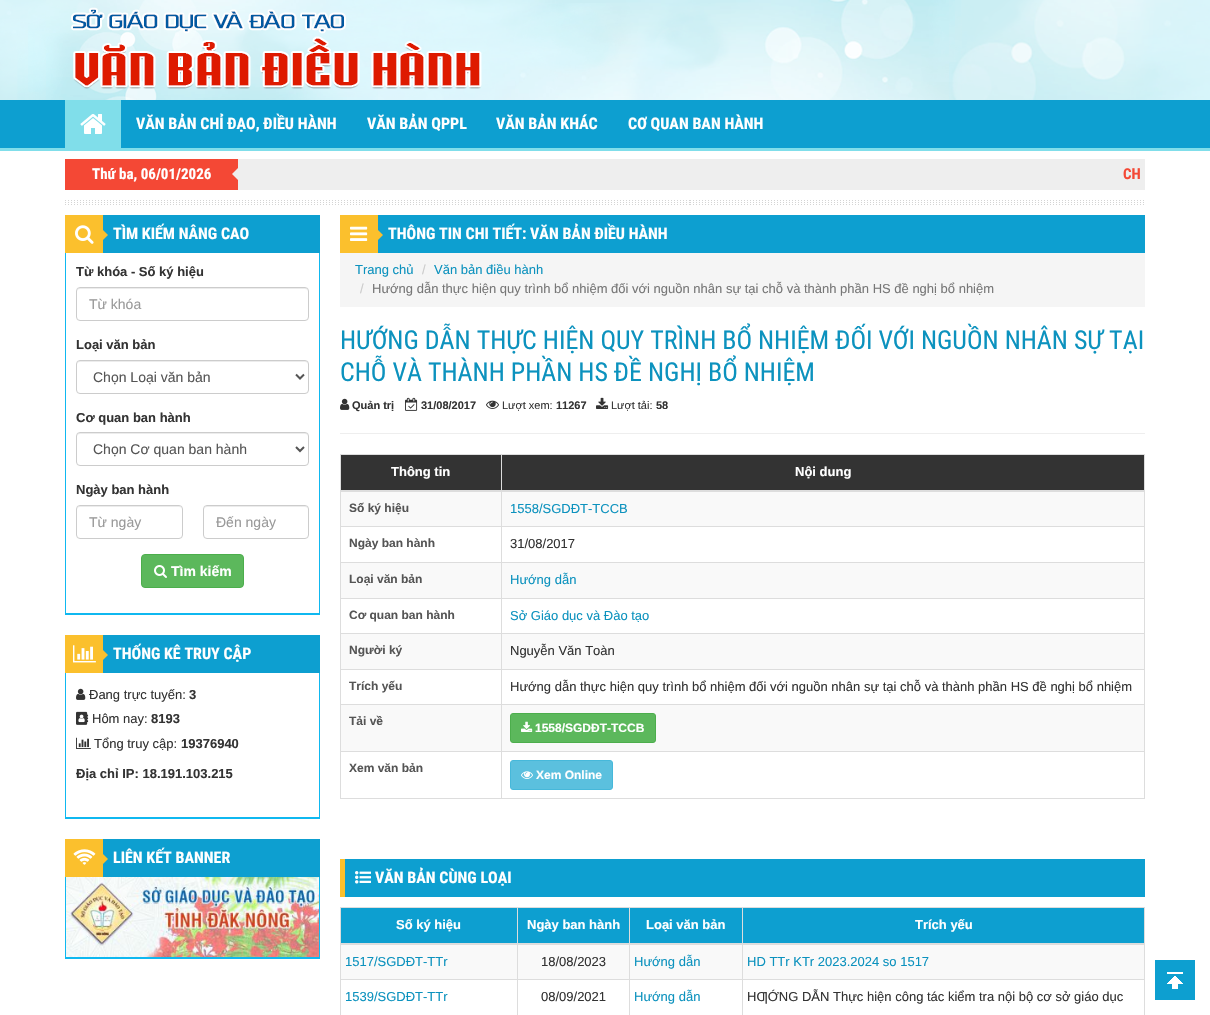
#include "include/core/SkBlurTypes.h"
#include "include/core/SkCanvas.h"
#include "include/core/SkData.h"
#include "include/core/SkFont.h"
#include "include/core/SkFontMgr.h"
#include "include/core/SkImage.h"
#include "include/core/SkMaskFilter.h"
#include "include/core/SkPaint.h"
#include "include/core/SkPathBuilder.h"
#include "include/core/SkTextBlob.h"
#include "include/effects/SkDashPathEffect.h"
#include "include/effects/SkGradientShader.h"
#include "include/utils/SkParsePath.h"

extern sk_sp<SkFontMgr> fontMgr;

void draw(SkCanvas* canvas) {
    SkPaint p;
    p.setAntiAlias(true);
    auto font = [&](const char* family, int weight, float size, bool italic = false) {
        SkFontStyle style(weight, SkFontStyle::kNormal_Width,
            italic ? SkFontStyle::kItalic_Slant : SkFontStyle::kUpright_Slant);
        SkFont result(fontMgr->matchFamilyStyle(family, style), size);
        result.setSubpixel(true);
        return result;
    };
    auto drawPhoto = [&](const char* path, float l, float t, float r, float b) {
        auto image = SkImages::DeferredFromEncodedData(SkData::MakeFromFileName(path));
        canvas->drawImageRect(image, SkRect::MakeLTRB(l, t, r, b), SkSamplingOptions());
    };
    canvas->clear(0xFFFFFFFF);
    drawPhoto("media/1.png", 0, 0, 1210, 100);
    drawPhoto("media/2.png", 71, 7, 482, 89);
    {
        const struct { float l, t, r, b; SkColor color; } items[] = {
            {0, 100, 1210, 148, 0xFF0D9FD0},
            {0, 148, 1210, 151, 0xFF80DEEA},
            {65, 100, 121, 148, 0xFF80DEEA},
        };
        for (auto [l, t, r, b, color] : items) {
            p.setColor(color);
            canvas->drawRect(SkRect::MakeLTRB(l, t, r, b), p);
        }
    }
    drawPhoto("media/3.png", 80, 114, 106, 134);
    auto font1 = font("Roboto Condensed", 700, 16);
    p.setColor(0xFFFFFFFF);
    {
        const struct { const char* s; float x, y; } items[] = {
            {"VĂN BẢN CHỈ ĐẠO, ĐIỀU HÀNH", 136, 129},
            {"VĂN BẢN QPPL", 367, 129},
            {"VĂN BẢN KHÁC", 496, 129},
            {"CƠ QUAN BAN HÀNH", 628, 129},
        };
        for (auto [s, x, y] : items) {
            canvas->drawString(s, x, y, font1, p);
        }
    }
    p.setColor(0xFFF44835);
    canvas->drawRect(SkRect::MakeLTRB(65, 159, 238, 190), p);
    auto font2 = font("Roboto Condensed", 700, 15);
    p.setColor(0xFFFFFFFF);
    canvas->drawString("Thứ ba, 06/01/2026", 92, 179, font2, p);
    p.setColor(0xFFEEEEEE);
    canvas->drawPath(SkPathBuilder().moveTo(238, 168).lineTo(238, 180).lineTo(232, 174).close().detach(), p);
    canvas->drawRect(SkRect::MakeLTRB(238, 159, 1145, 190), p);
    canvas->save();
    canvas->clipRect(SkRect::MakeLTRB(243, 164, 1140, 185));
    p.setColor(0xFFF44835);
    canvas->drawString("CH", 1123, 179, font2, p);
    canvas->restore();
    drawPhoto("media/4.png", 65, 200, 1144, 205);
    p.setColor(0xFF0D9FD0);
    canvas->drawRect(SkRect::MakeLTRB(103, 215, 320, 253), p);
    p.setColor(0xFFFBC02D);
    canvas->drawRect(SkRect::MakeLTRB(65, 215, 103, 253), p);
    drawPhoto("media/5.png", 75, 225, 94, 244);
    canvas->drawPath(SkPathBuilder().moveTo(103, 240).lineTo(103, 230).lineTo(108, 235).close().detach(), p);
    p.setColor(0xFFFFFFFF);
    canvas->drawString("TÌM KIẾM NÂNG CAO", 113, 239, font1, p);
    {
        const struct { float l, t, r, b; SkColor color; } items[] = {
            {319, 253, 320, 615, 0xFF0FB8F0},
            {65, 613, 320, 615, 0xFF0FB8F0},
            {65, 253, 66, 615, 0xFF0FB8F0},
        };
        for (auto [l, t, r, b, color] : items) {
            p.setColor(color);
            canvas->drawRect(SkRect::MakeLTRB(l, t, r, b), p);
        }
    }
    auto font3 = font("Liberation Sans", 700, 13);
    p.setColor(0xFF333333);
    canvas->drawString("Từ khóa - Số ký hiệu", 76, 276, font3, p);
    p.setColor(0xFFECECEC);
    canvas->drawPath(SkPathBuilder().moveTo(80, 289).lineTo(305, 289).cubicTo(307, 289, 308, 290, 308, 292).cubicTo(308, 290, 307, 288, 305, 288).lineTo(80, 288).cubicTo(78, 288, 77, 290, 77, 292).cubicTo(77, 290, 78, 289, 80, 289).close().detach(), p);
    p.setStyle(SkPaint::kStroke_Style);
    p.setStrokeWidth(1);
    p.setColor(0xFFCCCCCC);
    canvas->drawRoundRect(SkRect::MakeLTRB(76.5f, 287.5f, 308.5f, 320.5f), 3.5f, 3.5f, p);
    auto font4 = font("Liberation Sans", 400, 14);
    p.setStyle(SkPaint::kFill_Style);
    p.setColor(0xFF999999);
    canvas->drawString("Từ khóa", 89, 309, font4, p);
    p.setColor(0xFF333333);
    canvas->drawString("Loại văn bản", 76, 349, font3, p);
    p.setColor(0xFFECECEC);
    canvas->drawPath(SkPathBuilder().moveTo(80, 362).lineTo(305, 362).cubicTo(307, 362, 308, 363, 308, 365).cubicTo(308, 363, 307, 361, 305, 361).lineTo(80, 361).cubicTo(78, 361, 77, 363, 77, 365).cubicTo(77, 363, 78, 362, 80, 362).close().detach(), p);
    p.setStyle(SkPaint::kStroke_Style);
    p.setColor(0xFFCCCCCC);
    canvas->drawRoundRect(SkRect::MakeLTRB(76.5f, 360.5f, 308.5f, 393.5f), 3.5f, 3.5f, p);
    p.setStrokeWidth(2);
    p.setColor(0xFF555555);
    canvas->drawPath(SkPathBuilder().moveTo(296, 374.5f).lineTo(300, 378.5f).lineTo(304, 374.5f).detach(), p);
    p.setStyle(SkPaint::kFill_Style);
    canvas->drawString("Chọn Loại văn bản", 93, 382, font4, p);
    p.setColor(0xFF333333);
    canvas->drawString("Cơ quan ban hành", 76, 422, font3, p);
    p.setColor(0xFFECECEC);
    canvas->drawPath(SkPathBuilder().moveTo(80, 434).lineTo(305, 434).cubicTo(307, 434, 308, 435, 308, 437).cubicTo(308, 435, 307, 433, 305, 433).lineTo(80, 433).cubicTo(78, 433, 77, 435, 77, 437).cubicTo(77, 435, 78, 434, 80, 434).close().detach(), p);
    p.setStyle(SkPaint::kStroke_Style);
    p.setStrokeWidth(1);
    p.setColor(0xFFCCCCCC);
    canvas->drawRoundRect(SkRect::MakeLTRB(76.5f, 432.5f, 308.5f, 465.5f), 3.5f, 3.5f, p);
    p.setStrokeWidth(2);
    p.setColor(0xFF555555);
    canvas->drawPath(SkPathBuilder().moveTo(296, 447).lineTo(300, 451).lineTo(304, 447).detach(), p);
    p.setStyle(SkPaint::kFill_Style);
    canvas->drawString("Chọn Cơ quan ban hành", 93, 454, font4, p);
    p.setColor(0xFF333333);
    canvas->drawString("Ngày ban hành", 76, 494, font3, p);
    p.setColor(0xFFECECEC);
    canvas->drawPath(SkPathBuilder().moveTo(80, 507).lineTo(179, 507).cubicTo(181, 507, 182, 508, 182, 510).cubicTo(182, 502, 165, 506, 162, 506).lineTo(96, 506).cubicTo(94, 506, 77, 502, 77, 510).cubicTo(77, 508, 78, 507, 80, 507).close().detach(), p);
    p.setStyle(SkPaint::kStroke_Style);
    p.setStrokeWidth(1);
    p.setColor(0xFFCCCCCC);
    canvas->drawRoundRect(SkRect::MakeLTRB(76.5f, 505.5f, 182.5f, 538.5f), 3.5f, 3.5f, p);
    p.setStyle(SkPaint::kFill_Style);
    p.setColor(0xFF999999);
    canvas->drawString("Từ ngày", 89, 527, font4, p);
    p.setColor(0xFFECECEC);
    canvas->drawPath(SkPathBuilder().moveTo(207, 507).lineTo(305, 507).cubicTo(307, 507, 308, 508, 308, 510).cubicTo(308, 502, 291, 506, 289, 506).lineTo(223, 506).cubicTo(221, 506, 204, 502, 204, 510).cubicTo(204, 508, 205, 507, 207, 507).close().detach(), p);
    p.setStyle(SkPaint::kStroke_Style);
    p.setColor(0xFFCCCCCC);
    canvas->drawRoundRect(SkRect::MakeLTRB(203.5f, 505.5f, 308.5f, 538.5f), 3.5f, 3.5f, p);
    p.setStyle(SkPaint::kFill_Style);
    p.setColor(0xFF999999);
    canvas->drawString("Đến ngày", 216, 527, font4, p);
    p.setColor(0xFF5CB85C);
    canvas->drawRoundRect(SkRect::MakeLTRB(141.5f, 554.5f, 243.5f, 587.5f), 3.5f, 3.5f, p);
    p.setStyle(SkPaint::kStroke_Style);
    p.setColor(0xFF4CAE4C);
    canvas->drawRoundRect(SkRect::MakeLTRB(141.5f, 554.5f, 243.5f, 587.5f), 3.5f, 3.5f, p);
    drawPhoto("media/6.png", 154, 565, 167, 578);
    auto font5 = font("Liberation Sans", 700, 14);
    p.setStyle(SkPaint::kFill_Style);
    p.setColor(0xFFFFFFFF);
    canvas->drawString("Tìm kiếm", 171, 576, font5, p);
    p.setColor(0xFF0D9FD0);
    canvas->drawRect(SkRect::MakeLTRB(103, 635, 320, 673), p);
    p.setColor(0xFFFBC02D);
    canvas->drawRect(SkRect::MakeLTRB(65, 635, 103, 673), p);
    drawPhoto("media/7.png", 73, 645, 96, 663);
    canvas->drawPath(SkPathBuilder().moveTo(103, 660).lineTo(103, 650).lineTo(108, 655).close().detach(), p);
    p.setColor(0xFFFFFFFF);
    canvas->drawString("THỐNG KÊ TRUY CẬP", 113, 659, font1, p);
    {
        const struct { float l, t, r, b; SkColor color; } items[] = {
            {319, 673, 320, 819, 0xFF0FB8F0},
            {65, 817, 320, 819, 0xFF0FB8F0},
            {65, 673, 66, 819, 0xFF0FB8F0},
        };
        for (auto [l, t, r, b, color] : items) {
            p.setColor(color);
            canvas->drawRect(SkRect::MakeLTRB(l, t, r, b), p);
        }
    }
    drawPhoto("media/8.png", 76, 688, 86, 700);
    auto font6 = font("Liberation Sans", 400, 13);
    p.setColor(0xFF333333);
    canvas->drawString("Đang trực tuyến:", 89, 699, font6, p);
    canvas->drawString("3", 189, 699, font3, p);
    drawPhoto("media/9.png", 76, 711, 89, 725);
    canvas->drawString("Hôm nay:", 92, 723, font6, p);
    canvas->drawString("8193", 151, 723, font3, p);
    drawPhoto("media/10.png", 76, 737, 91, 749);
    canvas->drawString("Tổng truy cập:", 94, 748, font6, p);
    canvas->drawString("19376940", 181, 748, font3, p);
    canvas->drawString("Địa chỉ IP: 18.191.103.215", 76, 778, font3, p);
    p.setColor(0xFF0D9FD0);
    canvas->drawRect(SkRect::MakeLTRB(103, 839, 320, 877), p);
    p.setColor(0xFFFBC02D);
    canvas->drawRect(SkRect::MakeLTRB(65, 839, 103, 877), p);
    drawPhoto("media/11.png", 73, 849, 96, 865);
    canvas->drawPath(SkPathBuilder().moveTo(103, 864).lineTo(103, 854).lineTo(108, 859).close().detach(), p);
    p.setColor(0xFFFFFFFF);
    canvas->drawString("LIÊN KẾT BANNER", 113, 863, font1, p);
    {
        const struct { float l, t, r, b; SkColor color; } items[] = {
            {319, 877, 320, 959, 0xFF0FB8F0},
            {65, 957, 320, 959, 0xFF0FB8F0},
            {65, 877, 66, 959, 0xFF0FB8F0},
        };
        for (auto [l, t, r, b, color] : items) {
            p.setColor(color);
            canvas->drawRect(SkRect::MakeLTRB(l, t, r, b), p);
        }
    }
    drawPhoto("media/12.png", 66, 877, 319, 957);
    p.setColor(0xFF0D9FD0);
    canvas->drawRect(SkRect::MakeLTRB(378, 215, 1145, 253), p);
    p.setColor(0xFFFBC02D);
    canvas->drawRect(SkRect::MakeLTRB(340, 215, 378, 253), p);
    drawPhoto("media/13.png", 350, 226, 368, 241);
    canvas->drawPath(SkPathBuilder().moveTo(378, 240).lineTo(378, 230).lineTo(383, 235).close().detach(), p);
    p.setColor(0xFFFFFFFF);
    canvas->drawString("THÔNG TIN CHI TIẾT: VĂN BẢN ĐIỀU HÀNH", 388, 239, font1, p);
    p.setColor(0xFFF5F5F5);
    canvas->drawRect(SkRect::MakeLTRB(340, 253, 1145, 307), p);
    p.setColor(0xFF0C92BE);
    canvas->drawString("Trang chủ", 355, 274, font6, p);
    p.setColor(0xFFCCCCCC);
    canvas->drawString("/", 422, 274, font6, p);
    p.setColor(0xFF0C92BE);
    canvas->drawString("Văn bản điều hành", 434, 274, font6, p);
    p.setColor(0xFFCCCCCC);
    canvas->drawString("/", 360, 293, font6, p);
    p.setColor(0xFF777777);
    canvas->drawString("Hướng dẫn thực hiện quy trình bổ nhiệm đối với nguồn nhân sự tại chỗ và thành phần HS đề nghị bổ nhiệm", 372, 293, font6, p);
    auto font7 = font("Roboto Condensed", 400, 26);
    p.setColor(0xFF0C92BE);
    canvas->drawString("HƯỚNG DẪN THỰC HIỆN QUY TRÌNH BỔ NHIỆM ĐỐI VỚI NGUỒN NHÂN SỰ TẠI", 340, 349, font7, p);
    canvas->drawString("CHỖ VÀ THÀNH PHẦN HS ĐỀ NGHỊ BỔ NHIỆM", 340, 381, font7, p);
    drawPhoto("media/8.png", 340, 398, 350, 410);
    auto font8 = font("Liberation Sans", 700, 11);
    p.setColor(0xFF333333);
    canvas->drawString("Quản trị", 352, 409, font8, p);
    drawPhoto("media/14.png", 405, 397, 418, 411);
    canvas->drawString("31/08/2017", 421, 409, font8, p);
    drawPhoto("media/15.png", 486, 400, 499, 409);
    auto font9 = font("Liberation Sans", 400, 11);
    canvas->drawString("Lượt xem:", 502, 409, font9, p);
    canvas->drawString("11267", 556, 409, font8, p);
    drawPhoto("media/16.png", 596, 397, 609, 409);
    canvas->drawString("Lượt tải:", 611, 409, font9, p);
    canvas->drawString("58", 656, 409, font8, p);
    {
        const struct { float l, t, r, b; SkColor color; } items[] = {
            {340, 433, 1145, 434, 0xFFEEEEEE},
            {340, 454, 1145, 455, 0xFFDDDDDD},
            {1144, 454, 1145, 799, 0xFFDDDDDD},
            {340, 798, 1145, 799, 0xFFDDDDDD},
            {340, 454, 341, 799, 0xFFDDDDDD},
            {341, 455, 501, 490, 0xFF333333},
        };
        for (auto [l, t, r, b, color] : items) {
            p.setColor(color);
            canvas->drawRect(SkRect::MakeLTRB(l, t, r, b), p);
        }
    }
    p.setColor(0xFFFFFFFF);
    canvas->drawString("Thông tin", 391, 476, font3, p);
    {
        const struct { float l, t, r, b; SkColor color; } items[] = {
            {502, 455, 1144, 490, 0xFF333333},
            {341, 492, 1144, 526, 0xFFF9F9F9},
            {501, 526, 1145, 527, 0xFFDDDDDD},
            {501, 562, 1145, 563, 0xFFDDDDDD},
            {341, 563, 1144, 598, 0xFFF9F9F9},
            {501, 598, 1145, 599, 0xFFDDDDDD},
            {501, 633, 1145, 634, 0xFFDDDDDD},
            {341, 634, 1144, 669, 0xFFF9F9F9},
            {501, 669, 1145, 670, 0xFFDDDDDD},
            {501, 704, 1145, 705, 0xFFDDDDDD},
            {341, 705, 1144, 751, 0xFFF9F9F9},
            {501, 751, 1145, 752, 0xFFDDDDDD},
            {501, 751, 502, 799, 0xFFDDDDDD},
            {340, 751, 502, 752, 0xFFDDDDDD},
            {501, 704, 502, 752, 0xFFDDDDDD},
            {340, 704, 502, 705, 0xFFDDDDDD},
            {501, 669, 502, 705, 0xFFDDDDDD},
            {340, 669, 502, 670, 0xFFDDDDDD},
            {501, 633, 502, 670, 0xFFDDDDDD},
            {340, 633, 502, 634, 0xFFDDDDDD},
            {501, 598, 502, 634, 0xFFDDDDDD},
            {340, 598, 502, 599, 0xFFDDDDDD},
            {501, 562, 502, 599, 0xFFDDDDDD},
            {340, 562, 502, 563, 0xFFDDDDDD},
            {501, 526, 502, 563, 0xFFDDDDDD},
            {340, 526, 502, 527, 0xFFDDDDDD},
            {501, 454, 502, 527, 0xFFDDDDDD},
            {340, 490, 1145, 492, 0xFFDDDDDD},
        };
        for (auto [l, t, r, b, color] : items) {
            p.setColor(color);
            canvas->drawRect(SkRect::MakeLTRB(l, t, r, b), p);
        }
    }
    p.setColor(0xFFFFFFFF);
    canvas->drawString("Nội dung", 795, 476, font3, p);
    auto font10 = font("Liberation Sans", 700, 12);
    p.setColor(0xFF555555);
    canvas->drawString("Số ký hiệu", 349, 512, font10, p);
    p.setColor(0xFF0C92BE);
    canvas->drawString("1558/SGDĐT-TCCB", 510, 513, font6, p);
    p.setColor(0xFF555555);
    canvas->drawString("Ngày ban hành", 349, 547, font10, p);
    p.setColor(0xFF333333);
    canvas->drawString("31/08/2017", 510, 548, font6, p);
    p.setColor(0xFF555555);
    canvas->drawString("Loại văn bản", 349, 583, font10, p);
    p.setColor(0xFF0C92BE);
    canvas->drawString("Hướng dẫn", 510, 584, font6, p);
    p.setColor(0xFF555555);
    canvas->drawString("Cơ quan ban hành", 349, 619, font10, p);
    p.setColor(0xFF0C92BE);
    canvas->drawString("Sở Giáo dục và Đào tạo", 510, 620, font6, p);
    p.setColor(0xFF555555);
    canvas->drawString("Người ký", 349, 654, font10, p);
    p.setColor(0xFF333333);
    canvas->drawString("Nguyễn Văn Toàn", 510, 655, font6, p);
    p.setColor(0xFF555555);
    canvas->drawString("Trích yếu", 349, 690, font10, p);
    p.setColor(0xFF333333);
    canvas->drawString("Hướng dẫn thực hiện quy trình bổ nhiệm đối với nguồn nhân sự tại chỗ và thành phần HS đề nghị bổ nhiệm", 510, 691, font6, p);
    p.setColor(0xFF555555);
    canvas->drawString("Tải về", 349, 725, font10, p);
    p.setColor(0xFF5CB85C);
    canvas->drawRoundRect(SkRect::MakeLTRB(510.5f, 713.5f, 655.5f, 742.5f), 2.5f, 2.5f, p);
    p.setStyle(SkPaint::kStroke_Style);
    p.setColor(0xFF4CAE4C);
    canvas->drawRoundRect(SkRect::MakeLTRB(510.5f, 713.5f, 655.5f, 742.5f), 2.5f, 2.5f, p);
    drawPhoto("media/17.png", 521, 721, 533, 732);
    p.setStyle(SkPaint::kFill_Style);
    p.setColor(0xFFFFFFFF);
    canvas->drawString("1558/SGDĐT-TCCB", 535, 732, font10, p);
    p.setColor(0xFF555555);
    canvas->drawString("Xem văn bản", 349, 772, font10, p);
    p.setColor(0xFF5BC0DE);
    canvas->drawRoundRect(SkRect::MakeLTRB(510.5f, 760.5f, 612.5f, 789.5f), 2.5f, 2.5f, p);
    p.setStyle(SkPaint::kStroke_Style);
    p.setColor(0xFF46B8DA);
    canvas->drawRoundRect(SkRect::MakeLTRB(510.5f, 760.5f, 612.5f, 789.5f), 2.5f, 2.5f, p);
    drawPhoto("media/18.png", 521, 771, 533, 779);
    p.setStyle(SkPaint::kFill_Style);
    p.setColor(0xFFFFFFFF);
    canvas->drawString("Xem Online", 536, 779, font10, p);
    p.setColor(0xFF0D9FD0);
    canvas->drawRect(SkRect::MakeLTRB(345, 859, 1145, 897), p);
    p.setColor(0xFFFBC02D);
    canvas->drawRect(SkRect::MakeLTRB(340, 859, 345, 897), p);
    drawPhoto("media/19.png", 355, 871, 371, 884);
    p.setColor(0xFFFFFFFF);
    canvas->drawString("VĂN BẢN CÙNG LOẠI", 375, 883, font1, p);
    {
        const struct { float l, t, r, b; SkColor color; } items[] = {
            {340, 907, 1145, 908, 0xFFDDDDDD},
            {1144, 907, 1145, 1015, 0xFFDDDDDD},
            {340, 907, 341, 1015, 0xFFDDDDDD},
            {341, 908, 517, 943, 0xFF0D9FD0},
        };
        for (auto [l, t, r, b, color] : items) {
            p.setColor(color);
            canvas->drawRect(SkRect::MakeLTRB(l, t, r, b), p);
        }
    }
    p.setColor(0xFFFFFFFF);
    canvas->drawString("Số ký hiệu", 396, 929, font3, p);
    p.setColor(0xFF0D9FD0);
    canvas->drawRect(SkRect::MakeLTRB(518, 908, 629, 943), p);
    p.setColor(0xFFFFFFFF);
    canvas->drawString("Ngày ban hành", 527, 929, font3, p);
    p.setColor(0xFF0D9FD0);
    canvas->drawRect(SkRect::MakeLTRB(630, 908, 742, 943), p);
    p.setColor(0xFFFFFFFF);
    canvas->drawString("Loại văn bản", 646, 929, font3, p);
    {
        const struct { float l, t, r, b; SkColor color; } items[] = {
            {743, 908, 1144, 943, 0xFF0D9FD0},
            {341, 945, 1144, 979, 0xFFF9F9F9},
            {742, 979, 1145, 980, 0xFFDDDDDD},
            {742, 979, 743, 1015, 0xFFDDDDDD},
            {629, 979, 743, 980, 0xFFDDDDDD},
            {629, 979, 630, 1015, 0xFFDDDDDD},
            {517, 979, 630, 980, 0xFFDDDDDD},
            {517, 979, 518, 1015, 0xFFDDDDDD},
            {340, 979, 518, 980, 0xFFDDDDDD},
            {517, 907, 518, 980, 0xFFDDDDDD},
            {629, 907, 630, 980, 0xFFDDDDDD},
            {742, 907, 743, 980, 0xFFDDDDDD},
            {340, 943, 1145, 945, 0xFFDDDDDD},
        };
        for (auto [l, t, r, b, color] : items) {
            p.setColor(color);
            canvas->drawRect(SkRect::MakeLTRB(l, t, r, b), p);
        }
    }
    p.setColor(0xFFFFFFFF);
    canvas->drawString("Trích yếu", 915, 929, font3, p);
    p.setColor(0xFF0C92BE);
    canvas->drawString("1517/SGDĐT-TTr", 345, 966, font6, p);
    p.setColor(0xFF333333);
    canvas->drawString("18/08/2023", 541, 966, font6, p);
    p.setColor(0xFF0C92BE);
    {
        const struct { const char* s; float x, y; } items[] = {
            {"Hướng dẫn", 634, 966},
            {"HD TTr KTr 2023.2024 so 1517", 747, 966},
            {"1539/SGDĐT-TTr", 345, 1001},
        };
        for (auto [s, x, y] : items) {
            canvas->drawString(s, x, y, font6, p);
        }
    }
    p.setColor(0xFF333333);
    canvas->drawString("08/09/2021", 541, 1001, font6, p);
    p.setColor(0xFF0C92BE);
    canvas->drawString("Hướng dẫn", 634, 1001, font6, p);
    p.setColor(0xFF333333);
    canvas->drawString("HƢỚNG DẪN Thực hiện công tác kiểm tra nội bộ cơ sở giáo dục", 747, 1001, font6, p);
    p.setColor(0xFF0D9FD0);
    canvas->drawRect(SkRect::MakeLTRB(1155, 960, 1195, 1000), p);
    drawPhoto("media/20.png", 1167, 972, 1183, 989);
}
